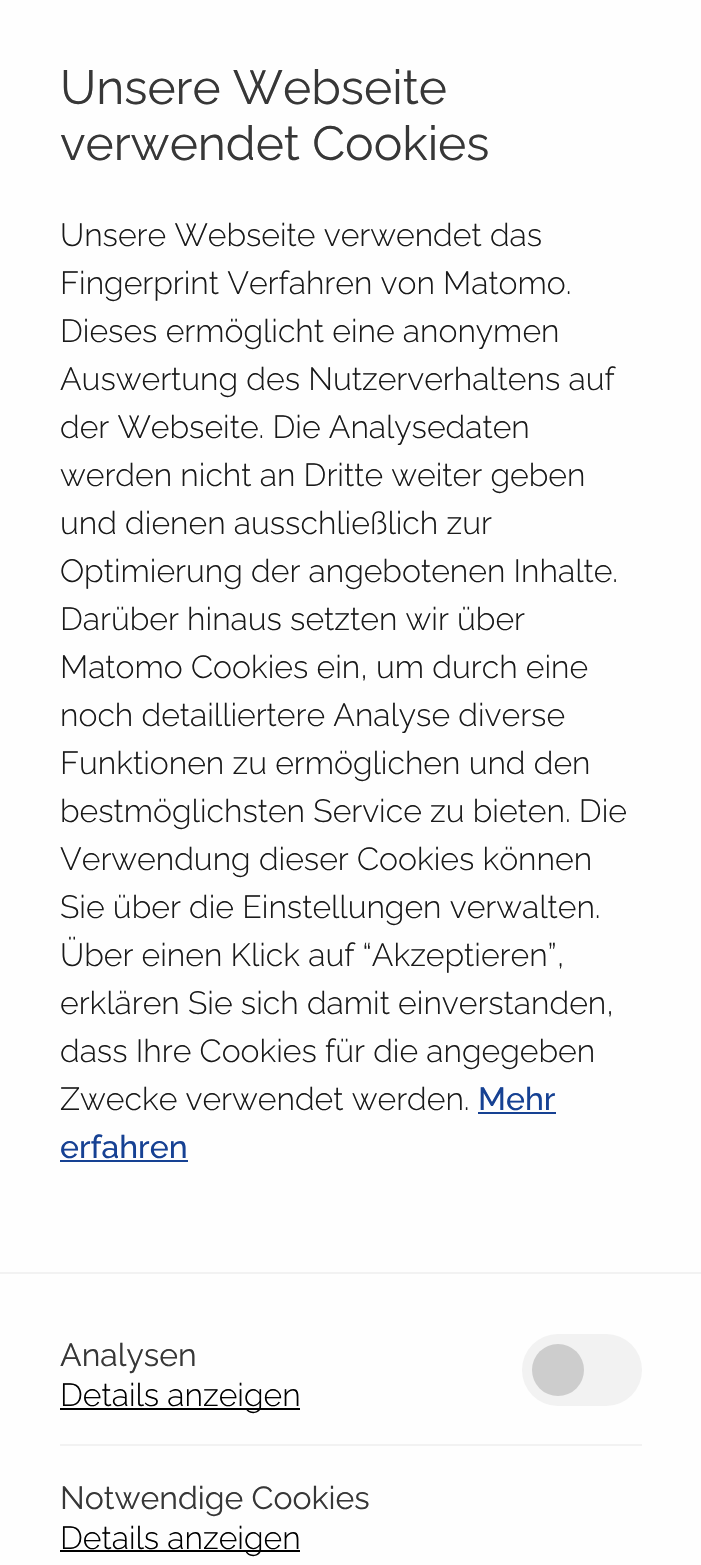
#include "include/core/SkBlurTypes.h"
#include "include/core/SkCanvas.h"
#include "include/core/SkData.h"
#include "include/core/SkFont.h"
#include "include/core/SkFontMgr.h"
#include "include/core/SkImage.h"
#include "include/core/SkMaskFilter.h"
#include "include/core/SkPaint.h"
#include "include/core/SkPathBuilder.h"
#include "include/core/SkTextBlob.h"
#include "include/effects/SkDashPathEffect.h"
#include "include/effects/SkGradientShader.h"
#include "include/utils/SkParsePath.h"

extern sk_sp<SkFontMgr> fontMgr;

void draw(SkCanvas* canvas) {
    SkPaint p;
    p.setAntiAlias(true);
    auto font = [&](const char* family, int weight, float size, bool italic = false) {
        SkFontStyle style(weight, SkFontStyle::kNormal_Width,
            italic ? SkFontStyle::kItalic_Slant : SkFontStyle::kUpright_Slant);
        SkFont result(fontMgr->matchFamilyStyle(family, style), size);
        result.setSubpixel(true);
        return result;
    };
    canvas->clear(0xFFFEFEFE);
    p.setColor(0xFFF2F2F2);
    canvas->drawRect(SkRect::MakeLTRB(0, 1272, 701, 1274), p);
    auto font1 = font("Raleway", 100, 48);
    p.setColor(0xFF373737);
    canvas->drawString("Unsere Webseite", 60, 104, font1, p);
    canvas->drawString("verwendet Cookies", 60, 160, font1, p);
    auto font2 = font("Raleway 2", 100, 32);
    p.setColor(0xFF1A1A1A);
    {
        const struct { const char* s; float x, y; } items[] = {
            {"Unsere Webseite verwendet das", 60, 246},
            {"Fingerprint Verfahren von Matomo.", 60, 294},
            {"Dieses ermöglicht eine anonymen", 60, 342},
            {"Auswertung des Nutzerverhaltens auf", 60, 390},
            {"der Webseite. Die Analysedaten", 60, 438},
            {"werden nicht an Dritte weiter geben", 60, 486},
            {"und dienen ausschließlich zur", 60, 534},
            {"Optimierung der angebotenen Inhalte.", 60, 582},
            {"Darüber hinaus setzten wir über", 60, 630},
            {"Matomo Cookies ein, um durch eine", 60, 678},
            {"noch detailliertere Analyse diverse", 60, 726},
            {"Funktionen zu ermöglichen und den", 60, 774},
            {"bestmöglichsten Service zu bieten. Die", 60, 822},
            {"Verwendung dieser Cookies können", 60, 870},
            {"Sie über die Einstellungen verwalten.", 60, 918},
            {"Über einen Klick auf “Akzeptieren”,", 60, 966},
            {"erklären Sie sich damit einverstanden,", 60, 1014},
            {"dass Ihre Cookies für die angegeben", 60, 1062},
            {"Zwecke verwendet werden.", 60, 1110},
        };
        for (auto [s, x, y] : items) {
            canvas->drawString(s, x, y, font2, p);
        }
    }
    auto font3 = font("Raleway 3", 100, 32);
    p.setColor(0xFF164193);
    canvas->drawString("Mehr", 478, 1110, font3, p);
    canvas->drawRect(SkRect::MakeLTRB(478, 1112, 556, 1114), p);
    canvas->drawString("erfahren", 60, 1158, font3, p);
    canvas->drawRect(SkRect::MakeLTRB(60, 1160, 188, 1162), p);
    p.setColor(0xFFF2F2F2);
    canvas->drawRect(SkRect::MakeLTRB(60, 1444, 642, 1446), p);
    auto font4 = font("Raleway", 100, 32);
    p.setColor(0xFF373737);
    canvas->drawString("Analysen", 60, 1366, font4, p);
    p.setColor(0xFF000000);
    canvas->drawRect(SkRect::MakeLTRB(60, 1408, 300, 1410), p);
    canvas->drawString("Details anzeigen", 60, 1406, font2, p);
    p.setColor(0xFFF2F2F2);
    canvas->drawRoundRect(SkRect::MakeLTRB(522, 1334, 642, 1406), 36, 36, p);
    p.setColor(0xFFCDCDCD);
    canvas->drawCircle(558, 1370, 26, p);
    p.setColor(0xFF373737);
    canvas->drawString("Notwendige Cookies", 60, 1509, font4, p);
    p.setColor(0xFF000000);
    canvas->drawRect(SkRect::MakeLTRB(60, 1550, 300, 1552), p);
    canvas->drawString("Details anzeigen", 60, 1549, font2, p);
}
